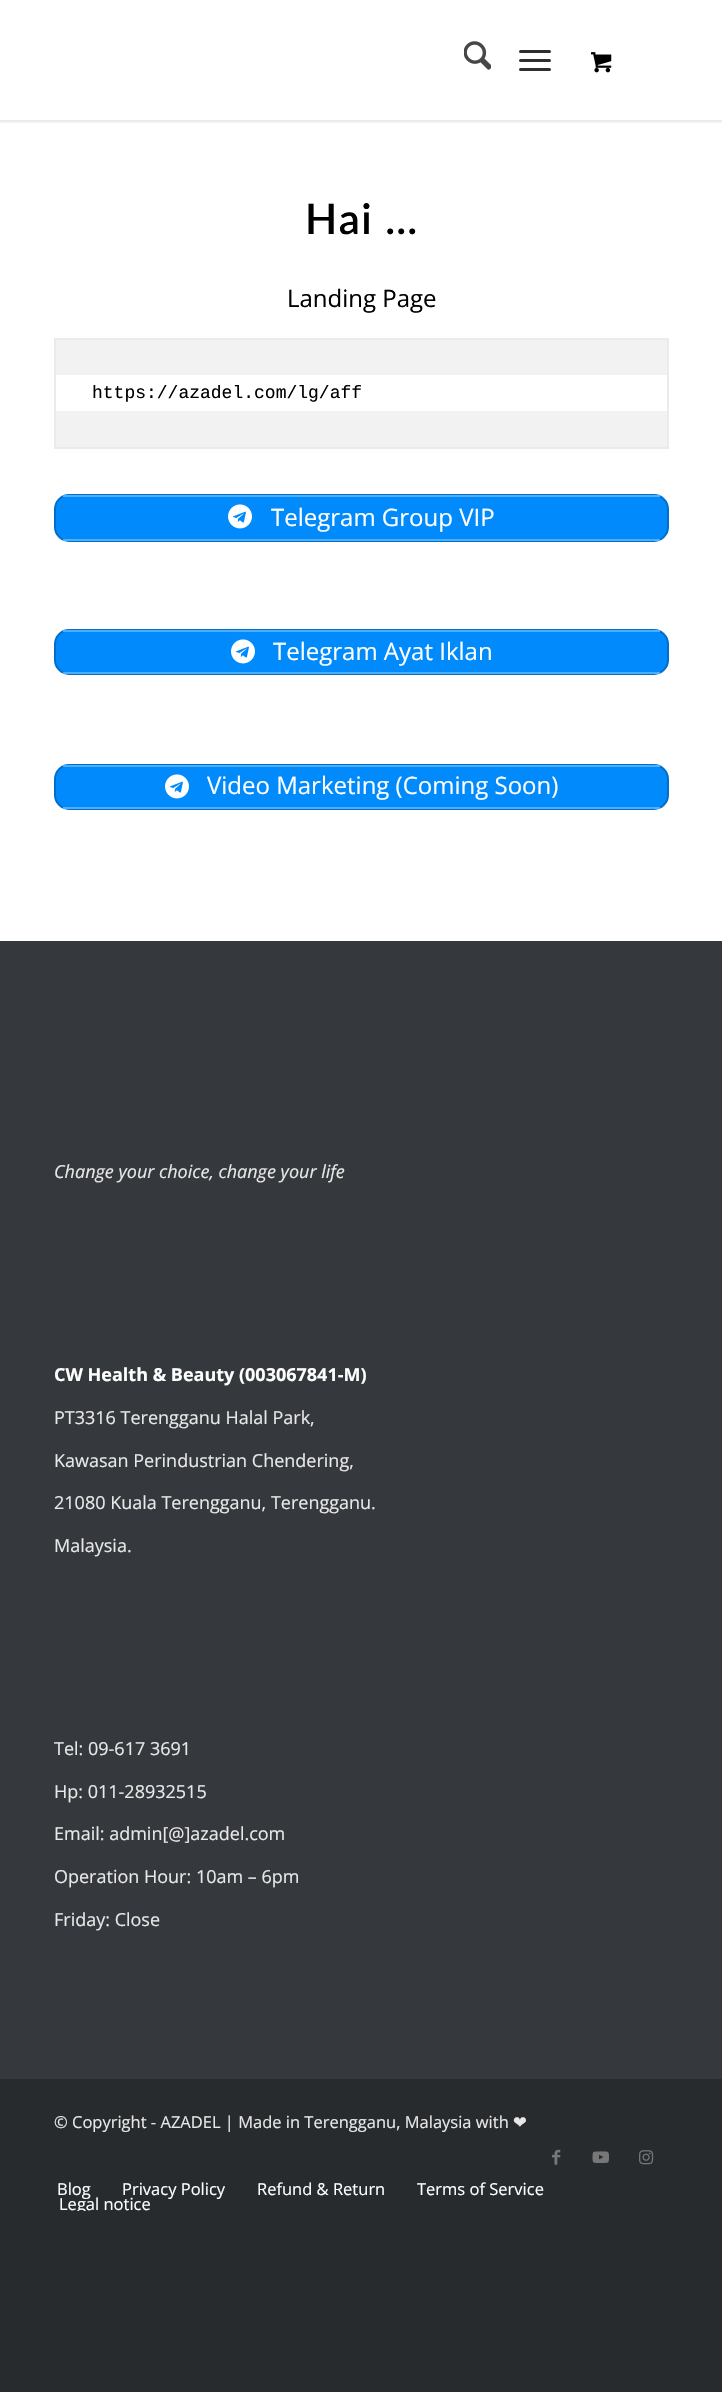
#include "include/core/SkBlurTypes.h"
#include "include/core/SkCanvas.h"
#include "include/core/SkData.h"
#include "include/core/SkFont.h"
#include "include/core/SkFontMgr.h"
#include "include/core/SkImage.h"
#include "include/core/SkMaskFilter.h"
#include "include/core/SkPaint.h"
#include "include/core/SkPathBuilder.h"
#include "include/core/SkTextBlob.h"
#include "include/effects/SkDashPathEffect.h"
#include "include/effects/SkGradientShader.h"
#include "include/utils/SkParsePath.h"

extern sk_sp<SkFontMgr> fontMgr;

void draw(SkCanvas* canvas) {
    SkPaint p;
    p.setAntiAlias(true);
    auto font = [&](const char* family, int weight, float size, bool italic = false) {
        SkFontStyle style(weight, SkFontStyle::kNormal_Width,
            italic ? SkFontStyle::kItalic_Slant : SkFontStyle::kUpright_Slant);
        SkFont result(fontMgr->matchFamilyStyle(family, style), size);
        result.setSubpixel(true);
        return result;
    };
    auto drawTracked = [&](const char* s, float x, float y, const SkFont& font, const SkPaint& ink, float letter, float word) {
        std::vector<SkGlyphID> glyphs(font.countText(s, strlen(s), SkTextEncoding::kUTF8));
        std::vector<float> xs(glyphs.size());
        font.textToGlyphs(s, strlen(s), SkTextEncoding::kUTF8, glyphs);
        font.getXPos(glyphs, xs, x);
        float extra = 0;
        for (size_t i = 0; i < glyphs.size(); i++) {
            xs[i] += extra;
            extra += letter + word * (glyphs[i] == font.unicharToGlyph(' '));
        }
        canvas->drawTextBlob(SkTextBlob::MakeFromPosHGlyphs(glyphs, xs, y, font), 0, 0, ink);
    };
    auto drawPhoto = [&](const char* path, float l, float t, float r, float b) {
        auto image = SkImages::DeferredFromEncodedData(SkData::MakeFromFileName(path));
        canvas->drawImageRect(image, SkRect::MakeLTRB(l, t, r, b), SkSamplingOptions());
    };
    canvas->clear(0xFF282B2E);
    p.setColor(0xFFFFFFFF);
    canvas->drawRect(SkRect::MakeLTRB(0, 0, 722, 941), p);
    canvas->save();
    canvas->clipRect(SkRect::MakeLTRB(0, 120, 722, 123));
    p.setColor(0x1A000000);
    p.setMaskFilter(SkMaskFilter::MakeBlur(kNormal_SkBlurStyle, 1.5f));
    canvas->drawRect(SkRect::MakeLTRB(-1, -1, 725, 122), p);
    p.setMaskFilter(nullptr);
    canvas->restore();
    drawPhoto("media/1.png", 464, 41, 491, 70);
    p.setColor(0xFF2E2E2E);
    canvas->drawRoundRect(SkRect::MakeLTRB(519, 59, 551, 62), 1.5f, 1.5f, p);
    canvas->drawRoundRect(SkRect::MakeLTRB(519, 50, 551, 53), 1.5f, 1.5f, p);
    canvas->drawRoundRect(SkRect::MakeLTRB(519, 68, 551, 71), 1.5f, 1.5f, p);
    drawPhoto("media/2.png", 591, 52, 612, 73);
    auto font1 = font("Lato", 600, 42);
    p.setColor(0xFF000000);
    drawTracked("Hai …", 305, 234, font1, p, 1.5f, 0);
    auto font2 = font("Open Sans", 400, 24);
    canvas->drawString("Landing Page", 287, 307, font2, p);
    p.setColor(0xFFF2F2F2);
    canvas->drawRect(SkRect::MakeLTRB(56, 340, 667, 375), p);
    canvas->drawRect(SkRect::MakeLTRB(56, 411, 667, 447), p);
    p.setStyle(SkPaint::kStroke_Style);
    p.setStrokeWidth(2);
    p.setColor(0xFFEBEBEB);
    canvas->drawRect(SkRect::MakeLTRB(55, 339, 668, 448), p);
    auto font3 = font("Liberation Mono", 400, 18);
    p.setStyle(SkPaint::kFill_Style);
    p.setColor(0xFF000000);
    canvas->drawString("https://azadel.com/lg/aff", 92, 398, font3, p);
    p.setColor(0xFF018AFC);
    canvas->drawRoundRect(SkRect::MakeLTRB(55, 495, 668, 541), 14, 14, p);
    p.setStyle(SkPaint::kStroke_Style);
    p.setColor(0xFF016FCA);
    canvas->drawRoundRect(SkRect::MakeLTRB(55, 495, 668, 541), 14, 14, p);
    p.setStyle(SkPaint::kFill_Style);
    p.setColor(0xFF4EAEFD);
    canvas->drawRect(SkRect::MakeLTRB(63, 495, 660, 497), p);
    canvas->drawRect(SkRect::MakeLTRB(63, 539, 660, 541), p);
    drawPhoto("media/3.png", 228, 504, 252, 529);
    p.setColor(0xFFFFFFFF);
    canvas->drawString("Telegram Group VIP", 271, 526, font2, p);
    p.setColor(0xFF018AFC);
    canvas->drawRoundRect(SkRect::MakeLTRB(55, 630, 668, 674), 14, 14, p);
    p.setStyle(SkPaint::kStroke_Style);
    p.setColor(0xFF016FCA);
    canvas->drawRoundRect(SkRect::MakeLTRB(55, 630, 668, 674), 14, 14, p);
    p.setStyle(SkPaint::kFill_Style);
    p.setColor(0xFF4EAEFD);
    canvas->drawRect(SkRect::MakeLTRB(63, 630, 660, 632), p);
    canvas->drawRect(SkRect::MakeLTRB(63, 672, 660, 674), p);
    drawPhoto("media/3.png", 231, 639, 255, 664);
    p.setColor(0xFFFFFFFF);
    canvas->drawString("Telegram Ayat Iklan", 273, 660, font2, p);
    p.setColor(0xFF018AFC);
    canvas->drawRoundRect(SkRect::MakeLTRB(55, 765, 668, 809), 14, 14, p);
    p.setStyle(SkPaint::kStroke_Style);
    p.setColor(0xFF016FCA);
    canvas->drawRoundRect(SkRect::MakeLTRB(55, 765, 668, 809), 14, 14, p);
    p.setStyle(SkPaint::kFill_Style);
    p.setColor(0xFF4EAEFD);
    canvas->drawRect(SkRect::MakeLTRB(63, 765, 660, 767), p);
    canvas->drawRect(SkRect::MakeLTRB(63, 807, 660, 809), p);
    drawPhoto("media/3.png", 165, 774, 189, 799);
    p.setColor(0xFFFFFFFF);
    canvas->drawString("Video Marketing (Coming Soon)", 207, 794, font2, p);
    p.setColor(0xFF35383C);
    canvas->drawRect(SkRect::MakeLTRB(0, 941, 722, 2079), p);
    auto font4 = font("Open Sans", 400, 18, true);
    p.setColor(0xFFE8E8E8);
    canvas->drawString("Change your choice, change your life", 54, 1178, font4, p);
    auto font5 = font("Open Sans", 700, 18);
    p.setColor(0xFFFFFFFF);
    canvas->drawString("CW Health & Beauty (003067841-M)", 54, 1381, font5, p);
    auto font6 = font("Open Sans", 400, 18);
    p.setColor(0xFFE8E8E8);
    {
        const struct { const char* s; float x, y; } items[] = {
            {"PT3316 Terengganu Halal Park,", 54, 1424},
            {"Kawasan Perindustrian Chendering,", 54, 1467},
            {"21080 Kuala Terengganu, Terengganu.", 54, 1509},
            {"Malaysia.", 54, 1552},
            {"Tel: 09-617 3691", 54, 1755},
            {"Hp: 011-28932515", 54, 1798},
            {"Email: admin[@]azadel.com", 54, 1840},
            {"Operation Hour: 10am – 6pm", 54, 1883},
            {"Friday: Close", 54, 1926},
        };
        for (auto [s, x, y] : items) {
            canvas->drawString(s, x, y, font6, p);
        }
    }
    auto font7 = font("Open Sans", 400, 16.5f);
    canvas->drawString("© Copyright - AZADEL | Made in Terengganu, Malaysia with", 54, 2128, font7, p);
    auto font8 = font("DejaVu Sans", 400, 16.5f);
    canvas->drawString("❤", 513, 2128, font8, p);
    drawPhoto("media/4.png", 552, 2149, 561, 2165);
    drawPhoto("media/5.png", 592, 2151, 609, 2163);
    drawPhoto("media/6.png", 639, 2150, 654, 2165);
    p.setColor(0xFFFFFFFF);
    {
        const struct { const char* s; float x, y; } items[] = {
            {"Blog", 57, 2195},
            {"Privacy Policy", 122, 2195},
            {"Refund & Return", 257, 2195},
            {"Terms of Service", 417, 2195},
        };
        for (auto [s, x, y] : items) {
            canvas->drawString(s, x, y, font7, p);
        }
    }
    canvas->save();
    canvas->clipRect(SkRect::MakeLTRB(32, 2172, 647, 2211));
    canvas->drawString("Legal notice", 59, 2210, font7, p);
    canvas->restore();
}
